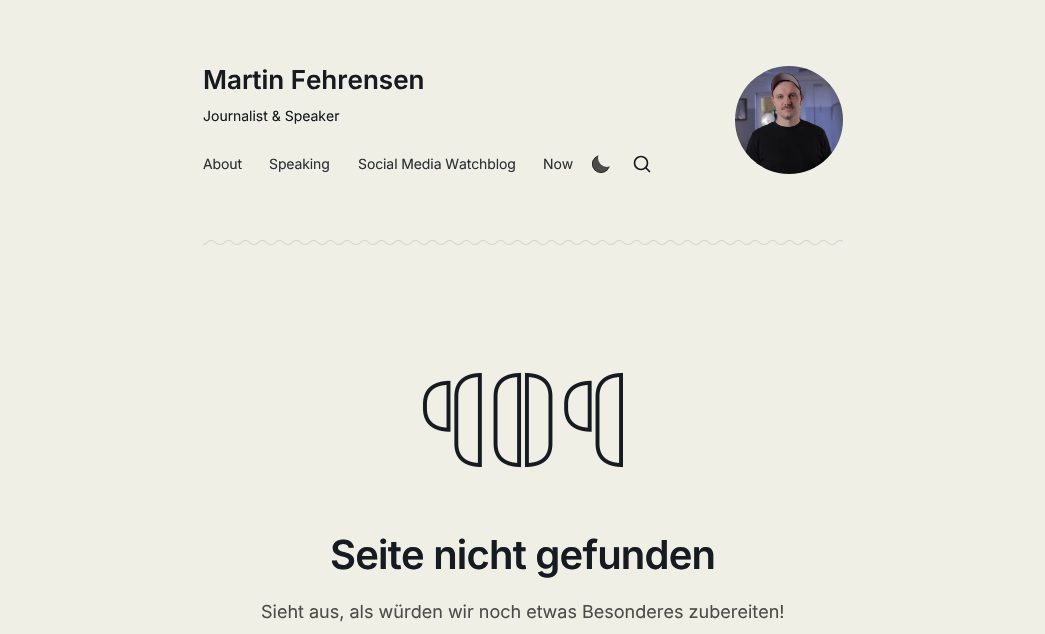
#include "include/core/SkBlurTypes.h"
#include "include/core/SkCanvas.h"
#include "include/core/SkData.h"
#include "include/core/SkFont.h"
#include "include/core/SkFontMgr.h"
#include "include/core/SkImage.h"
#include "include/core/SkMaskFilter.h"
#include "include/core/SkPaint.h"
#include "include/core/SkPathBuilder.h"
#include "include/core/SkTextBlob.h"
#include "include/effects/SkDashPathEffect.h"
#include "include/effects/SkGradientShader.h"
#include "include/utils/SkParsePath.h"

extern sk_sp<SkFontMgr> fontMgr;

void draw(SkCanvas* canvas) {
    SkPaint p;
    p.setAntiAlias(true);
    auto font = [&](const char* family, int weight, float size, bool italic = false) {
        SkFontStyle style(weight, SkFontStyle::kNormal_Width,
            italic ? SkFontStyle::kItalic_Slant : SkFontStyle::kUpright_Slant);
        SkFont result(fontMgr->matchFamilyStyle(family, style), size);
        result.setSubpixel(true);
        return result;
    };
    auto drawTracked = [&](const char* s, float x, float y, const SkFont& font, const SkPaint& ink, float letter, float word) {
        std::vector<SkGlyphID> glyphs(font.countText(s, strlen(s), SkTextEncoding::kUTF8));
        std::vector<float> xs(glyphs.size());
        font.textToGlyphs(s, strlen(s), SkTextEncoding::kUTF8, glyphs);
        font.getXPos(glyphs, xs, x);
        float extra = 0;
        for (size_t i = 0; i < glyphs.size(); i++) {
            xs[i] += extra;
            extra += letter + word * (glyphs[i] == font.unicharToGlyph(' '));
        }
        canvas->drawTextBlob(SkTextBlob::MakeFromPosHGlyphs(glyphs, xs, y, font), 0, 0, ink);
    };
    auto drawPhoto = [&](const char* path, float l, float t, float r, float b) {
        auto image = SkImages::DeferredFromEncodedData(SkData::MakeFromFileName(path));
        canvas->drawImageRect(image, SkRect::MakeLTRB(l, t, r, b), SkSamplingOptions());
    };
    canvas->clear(0xFFF0EFE6);
    auto font1 = font("Inter", 600, 26);
    p.setColor(0xFF161B22);
    canvas->drawString("Martin Fehrensen", 203, 89, font1, p);
    auto font2 = font("Inter", 400, 14);
    canvas->drawString("Journalist & Speaker", 203, 121, font2, p);
    p.setColor(0xFF2C3135);
    {
        const struct { const char* s; float x, y; } items[] = {
            {"About", 203, 169},
            {"Speaking", 269, 169},
            {"Social Media Watchblog", 358, 169},
            {"Now", 543, 169},
        };
        for (auto [s, x, y] : items) {
            drawTracked(s, x, y, font2, p, -0.1f, 0);
        }
    }
    p.setColor(0xFF4C4B49);
    canvas->drawCircle(601, 164, 9, p);
    p.setStyle(SkPaint::kStroke_Style);
    p.setStrokeWidth(0.8f);
    p.setColor(0xB3050505);
    canvas->drawCircle(601, 164, 8.6f, p);
    p.setStyle(SkPaint::kFill_Style);
    p.setColor(0xFFF0EFE6);
    canvas->drawCircle(607, 158, 9, p);
    p.setStyle(SkPaint::kStroke_Style);
    p.setStrokeWidth(1.7f);
    p.setColor(0xFF161B22);
    canvas->drawCircle(641, 163, 6.5f, p);
    p.setStrokeCap(SkPaint::kRound_Cap);
    p.setStrokeJoin(SkPaint::kRound_Join);
    p.setColor(0xEB030911);
    canvas->drawPath(SkPathBuilder().moveTo(649.5f, 171.5f).lineTo(646, 168).detach(), p);
    drawPhoto("media/1.png", 735, 66, 843, 174);
    drawPhoto("media/2.png", 203, 240, 843, 245);
    drawPhoto("media/3.png", 423, 372, 623, 468);
    auto font3 = font("Inter", 600, 40);
    p.setStyle(SkPaint::kFill_Style);
    p.setColor(0xFF161B22);
    drawTracked("Seite nicht gefunden", 330, 569, font3, p, -0.8f, 0);
    auto font4 = font("Inter", 400, 18);
    p.setColor(0xFF4C4B49);
    canvas->drawString("Sieht aus, als würden wir noch etwas Besonderes zubereiten!", 261, 618, font4, p);
}
